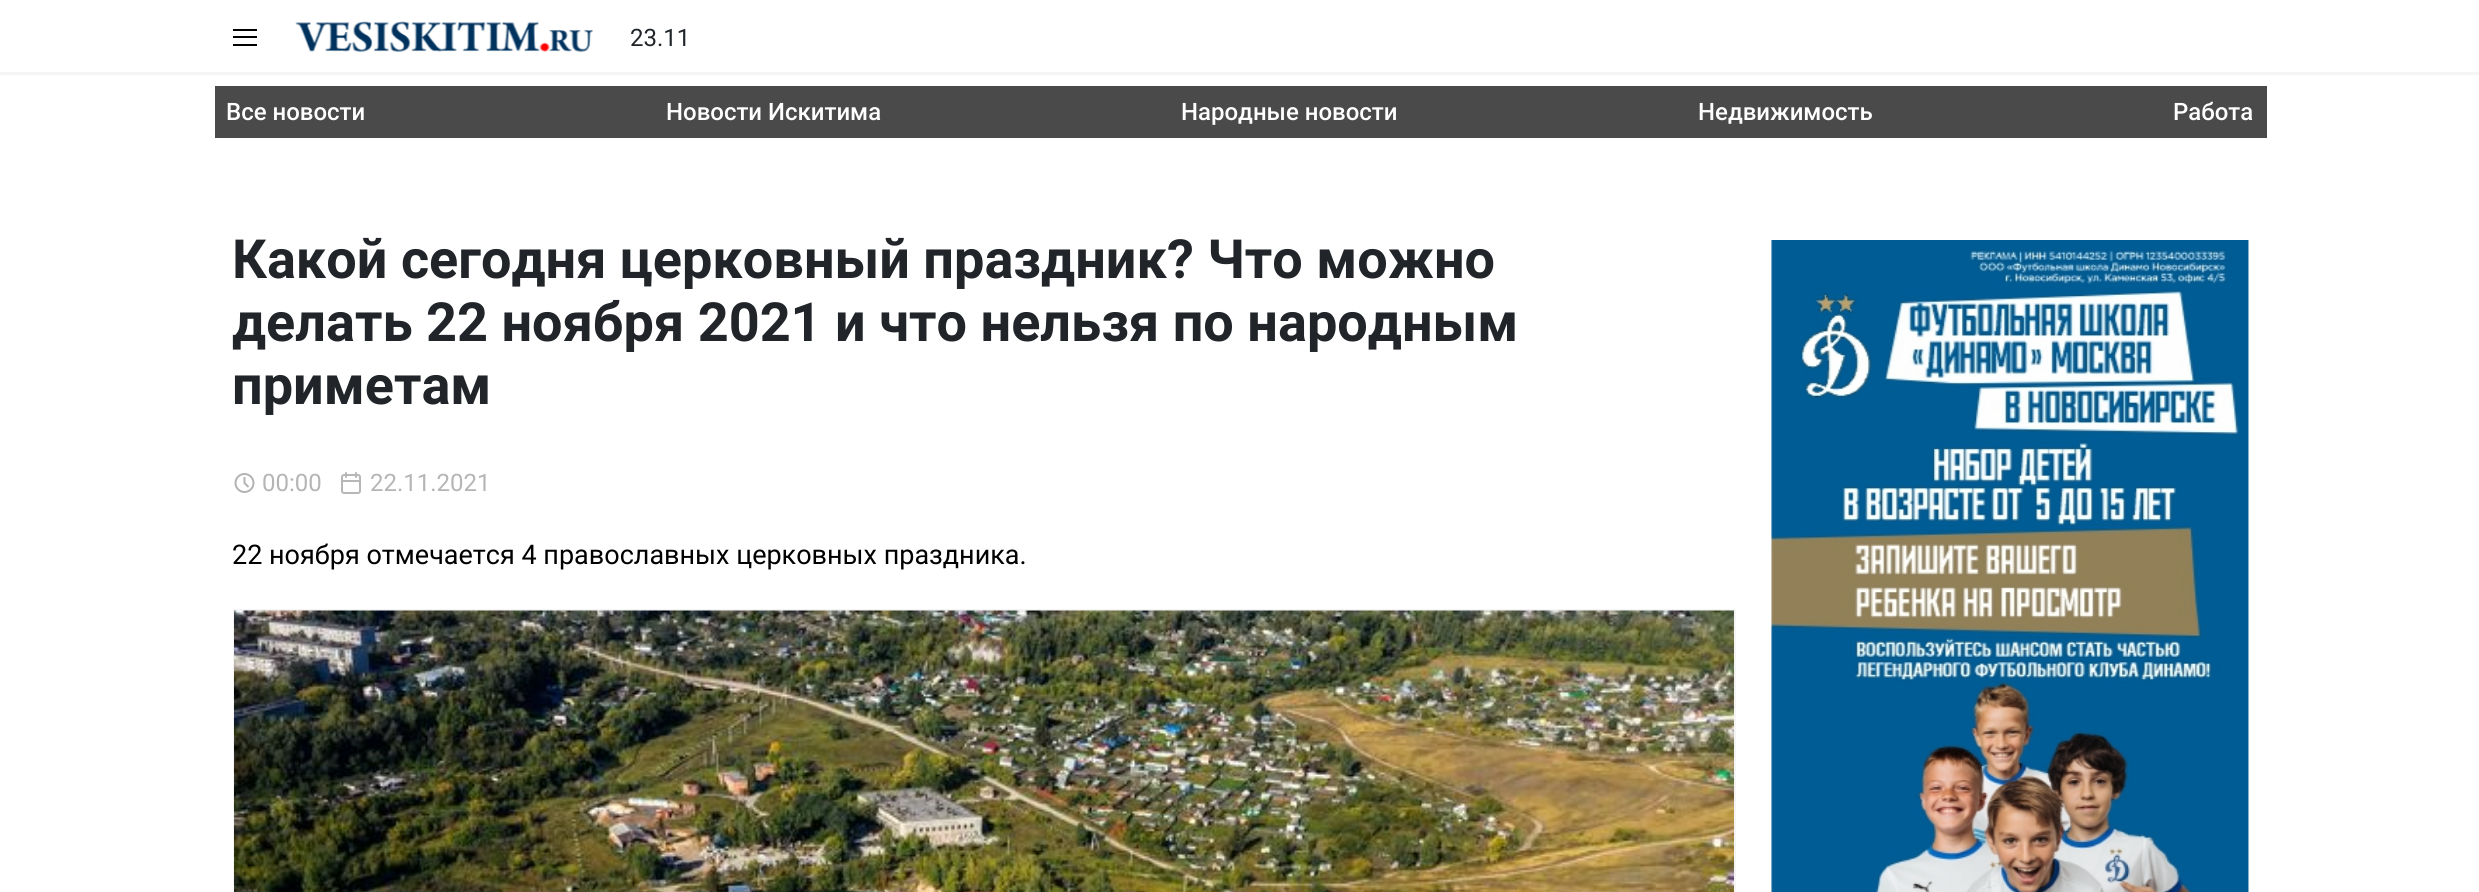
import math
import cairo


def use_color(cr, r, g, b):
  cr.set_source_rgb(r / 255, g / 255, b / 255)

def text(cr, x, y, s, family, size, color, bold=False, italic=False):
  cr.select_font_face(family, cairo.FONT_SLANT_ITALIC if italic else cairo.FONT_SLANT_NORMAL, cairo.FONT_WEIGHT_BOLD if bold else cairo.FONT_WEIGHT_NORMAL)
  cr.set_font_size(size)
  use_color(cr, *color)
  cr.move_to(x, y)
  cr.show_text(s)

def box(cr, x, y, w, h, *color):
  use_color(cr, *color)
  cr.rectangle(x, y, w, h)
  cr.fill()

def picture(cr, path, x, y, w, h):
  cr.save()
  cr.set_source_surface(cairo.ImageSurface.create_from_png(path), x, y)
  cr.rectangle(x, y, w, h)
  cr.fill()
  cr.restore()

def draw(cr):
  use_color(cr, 255, 255, 255)
  cr.paint()
  box(cr, 0, 72, 2479, 3, 245, 245, 245)
  box(cr, 233, 29, 24, 2, 0, 0, 0)
  box(cr, 233, 36, 24, 2, 0, 0, 0)
  box(cr, 233, 44, 24, 2, 0, 0, 0)
  picture(cr, "img_01.png", 295, 21, 298, 32)
  box(cr, 215, 86, 2052, 52, 74, 74, 74)
  picture(cr, "img_02.png", 234, 473, 21, 20)
  picture(cr, "img_03.png", 341, 472, 20, 22)
  cr.rectangle(234, 610, 1501, 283)
  use_color(cr, 245, 245, 245)
  cr.stroke()
  picture(cr, "img_04.png", 234, 610, 1500, 282)
  picture(cr, "img_05.png", 1771, 240, 478, 652)
  text(cr, 630, 46, "23.11", "Roboto", 24, (33, 37, 41))
  text(cr, 226, 120, "Все новости", "Roboto Medium", 24, (255, 255, 255))
  text(cr, 666, 120, "Новости Искитима", "Roboto Medium", 24, (255, 255, 255))
  text(cr, 1181, 120, "Народные новости", "Roboto Medium", 24, (255, 255, 255))
  text(cr, 1698, 120, "Недвижимость", "Roboto Medium", 24, (255, 255, 255))
  text(cr, 2173, 120, "Работа", "Roboto Medium", 24, (255, 255, 255))
  text(cr, 232, 278, "Какой сегодня церковный праздник? Что можно", "Roboto", 54, (33, 37, 41), bold=True)
  text(cr, 232, 341, "делать 22 ноября 2021 и что нельзя по народным", "Roboto", 54, (33, 37, 41), bold=True)
  text(cr, 232, 404, "приметам", "Roboto", 54, (33, 37, 41), bold=True)
  text(cr, 262, 491, "00:00", "Roboto", 24, (181, 181, 181))
  text(cr, 370, 491, "22.11.2021", "Roboto", 24, (181, 181, 181))
  text(cr, 232, 564, "22 ноября отмечается 4 православных церковных праздника.", "Roboto", 27, (0, 0, 0))


surface = cairo.ImageSurface(cairo.FORMAT_RGB24, 2479, 892)
cr = cairo.Context(surface)
options = cairo.FontOptions()
options.set_hint_metrics(cairo.HINT_METRICS_OFF)
options.set_hint_style(cairo.HINT_STYLE_NONE)
cr.set_font_options(options)
cr.set_miter_limit(4)
draw(cr)
surface.write_to_png("out.png")
